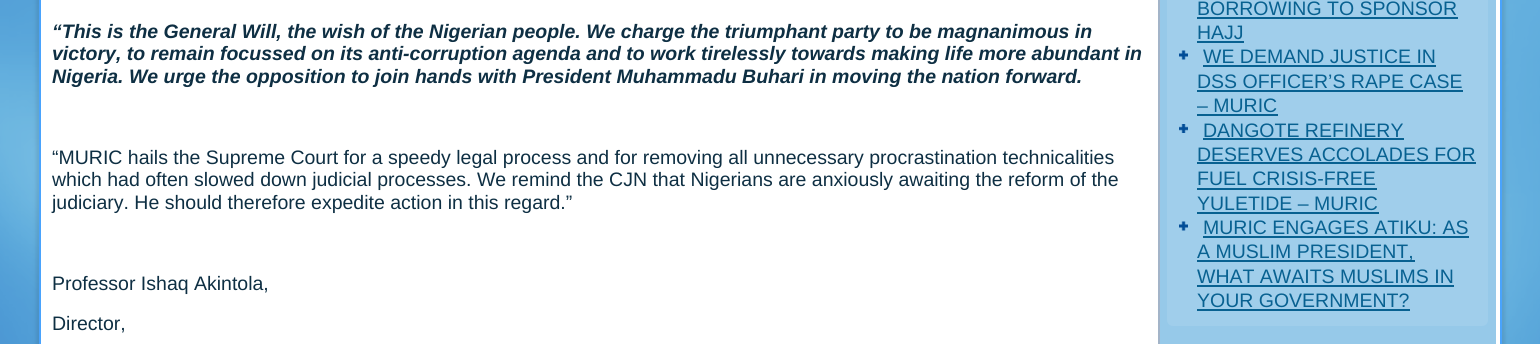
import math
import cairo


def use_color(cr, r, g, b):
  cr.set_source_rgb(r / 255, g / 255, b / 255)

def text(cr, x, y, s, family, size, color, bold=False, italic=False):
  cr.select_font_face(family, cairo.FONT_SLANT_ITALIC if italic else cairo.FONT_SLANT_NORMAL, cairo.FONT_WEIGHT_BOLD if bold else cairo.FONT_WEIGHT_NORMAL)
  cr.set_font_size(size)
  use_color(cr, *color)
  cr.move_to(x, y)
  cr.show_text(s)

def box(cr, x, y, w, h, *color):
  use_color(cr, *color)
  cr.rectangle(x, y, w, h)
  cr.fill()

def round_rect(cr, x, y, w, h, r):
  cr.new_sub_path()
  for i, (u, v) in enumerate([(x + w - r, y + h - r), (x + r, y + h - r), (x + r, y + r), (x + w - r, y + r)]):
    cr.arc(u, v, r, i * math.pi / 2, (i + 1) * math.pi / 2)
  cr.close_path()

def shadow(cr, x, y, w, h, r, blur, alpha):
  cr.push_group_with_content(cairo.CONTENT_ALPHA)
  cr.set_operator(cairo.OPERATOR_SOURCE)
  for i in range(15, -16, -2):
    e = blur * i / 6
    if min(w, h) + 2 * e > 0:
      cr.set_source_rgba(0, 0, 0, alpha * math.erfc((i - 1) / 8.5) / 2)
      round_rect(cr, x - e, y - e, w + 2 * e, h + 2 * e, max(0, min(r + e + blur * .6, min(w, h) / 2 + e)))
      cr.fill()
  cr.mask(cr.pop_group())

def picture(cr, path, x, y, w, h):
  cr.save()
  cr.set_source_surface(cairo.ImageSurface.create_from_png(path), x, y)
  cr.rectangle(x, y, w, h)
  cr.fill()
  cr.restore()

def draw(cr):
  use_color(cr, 99, 175, 222)
  cr.paint()
  picture(cr, "img_01.png", 0, 0, 1540, 344)
  use_color(cr, 0, 0, 0)
  shadow(cr, 36, -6, 1469, 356, 0, 2, 0.1)
  box(cr, 41, 0, 1459, 344, 255, 255, 255)
  box(cr, 1500, 0, 2, 344, 73, 163, 253)
  box(cr, 39, 0, 2, 344, 73, 163, 253)
  box(cr, 1160, 0, 336, 344, 150, 201, 233)
  box(cr, 1158, 0, 2, 344, 163, 180, 200)
  use_color(cr, 160, 206, 235)
  round_rect(cr, 1167, -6, 321, 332, 6)
  cr.fill()
  box(cr, 1197, 17, 261, 2, 8, 97, 145)
  box(cr, 1197, 41, 47, 2, 8, 97, 145)
  picture(cr, "img_02.png", 1179, 50, 9, 10)
  box(cr, 1203, 65, 233, 2, 8, 97, 145)
  box(cr, 1197, 90, 266, 2, 8, 97, 145)
  box(cr, 1197, 114, 81, 2, 8, 97, 145)
  picture(cr, "img_03.png", 1179, 124, 9, 9)
  box(cr, 1203, 138, 201, 2, 8, 97, 145)
  box(cr, 1197, 162, 279, 2, 8, 97, 145)
  box(cr, 1197, 188, 180, 2, 8, 97, 145)
  box(cr, 1197, 212, 182, 2, 8, 97, 145)
  picture(cr, "img_02.png", 1179, 221, 9, 10)
  box(cr, 1203, 236, 266, 2, 8, 97, 145)
  box(cr, 1197, 260, 218, 2, 8, 97, 145)
  box(cr, 1197, 285, 257, 2, 8, 97, 145)
  box(cr, 1197, 309, 213, 2, 8, 97, 145)
  text(cr, 52, 38, "“This is the General Will, the wish of the Nigerian people. We charge the triumphant party to be magnanimous in", "Liberation Sans", 19.5, (14, 47, 67), bold=True, italic=True)
  text(cr, 52, 60, "victory, to remain focussed on its anti-corruption agenda and to work tirelessly towards making life more abundant in", "Liberation Sans", 19.5, (14, 47, 67), bold=True, italic=True)
  text(cr, 52, 83, "Nigeria. We urge the opposition to join hands with President Muhammadu Buhari in moving the nation forward.", "Liberation Sans", 19.5, (14, 47, 67), bold=True, italic=True)
  text(cr, 52, 164, "“MURIC hails the Supreme Court for a speedy legal process and for removing all unnecessary procrastination technicalities", "Liberation Sans", 19.5, (14, 47, 67))
  text(cr, 52, 186, "which had often slowed down judicial processes. We remind the CJN that Nigerians are anxiously awaiting the reform of the", "Liberation Sans", 19.5, (14, 47, 67))
  text(cr, 52, 209, "judiciary. He should therefore expedite action in this regard.”", "Liberation Sans", 19.5, (14, 47, 67))
  text(cr, 52, 290, "Professor Ishaq Akintola,", "Liberation Sans", 19.5, (14, 47, 67))
  text(cr, 52, 330, "Director,", "Liberation Sans", 19.5, (14, 47, 67))
  text(cr, 1197, 15, "BORROWING TO SPONSOR", "Liberation Sans", 19.5, (8, 97, 145))
  text(cr, 1197, 39, "HAJJ", "Liberation Sans", 19.5, (8, 97, 145))
  text(cr, 1203, 63, "WE DEMAND JUSTICE IN", "Liberation Sans", 19.5, (8, 97, 145))
  text(cr, 1197, 88, "DSS OFFICER’S RAPE CASE", "Liberation Sans", 19.5, (8, 97, 145))
  text(cr, 1197, 112, "– MURIC", "Liberation Sans", 19.5, (8, 97, 145))
  text(cr, 1203, 137, "DANGOTE REFINERY", "Liberation Sans", 19.5, (8, 97, 145))
  text(cr, 1197, 161, "DESERVES ACCOLADES FOR", "Liberation Sans", 19.5, (8, 97, 145))
  text(cr, 1197, 185, "FUEL CRISIS-FREE", "Liberation Sans", 19.5, (8, 97, 145))
  text(cr, 1197, 210, "YULETIDE – MURIC", "Liberation Sans", 19.5, (8, 97, 145))
  text(cr, 1203, 234, "MURIC ENGAGES ATIKU: AS", "Liberation Sans", 19.5, (8, 97, 145))
  text(cr, 1197, 258, "A MUSLIM PRESIDENT,", "Liberation Sans", 19.5, (8, 97, 145))
  text(cr, 1197, 283, "WHAT AWAITS MUSLIMS IN", "Liberation Sans", 19.5, (8, 97, 145))
  text(cr, 1197, 307, "YOUR GOVERNMENT?", "Liberation Sans", 19.5, (8, 97, 145))


surface = cairo.ImageSurface(cairo.FORMAT_RGB24, 1540, 344)
cr = cairo.Context(surface)
options = cairo.FontOptions()
options.set_hint_metrics(cairo.HINT_METRICS_OFF)
options.set_hint_style(cairo.HINT_STYLE_NONE)
cr.set_font_options(options)
cr.set_miter_limit(4)
draw(cr)
surface.write_to_png("out.png")
